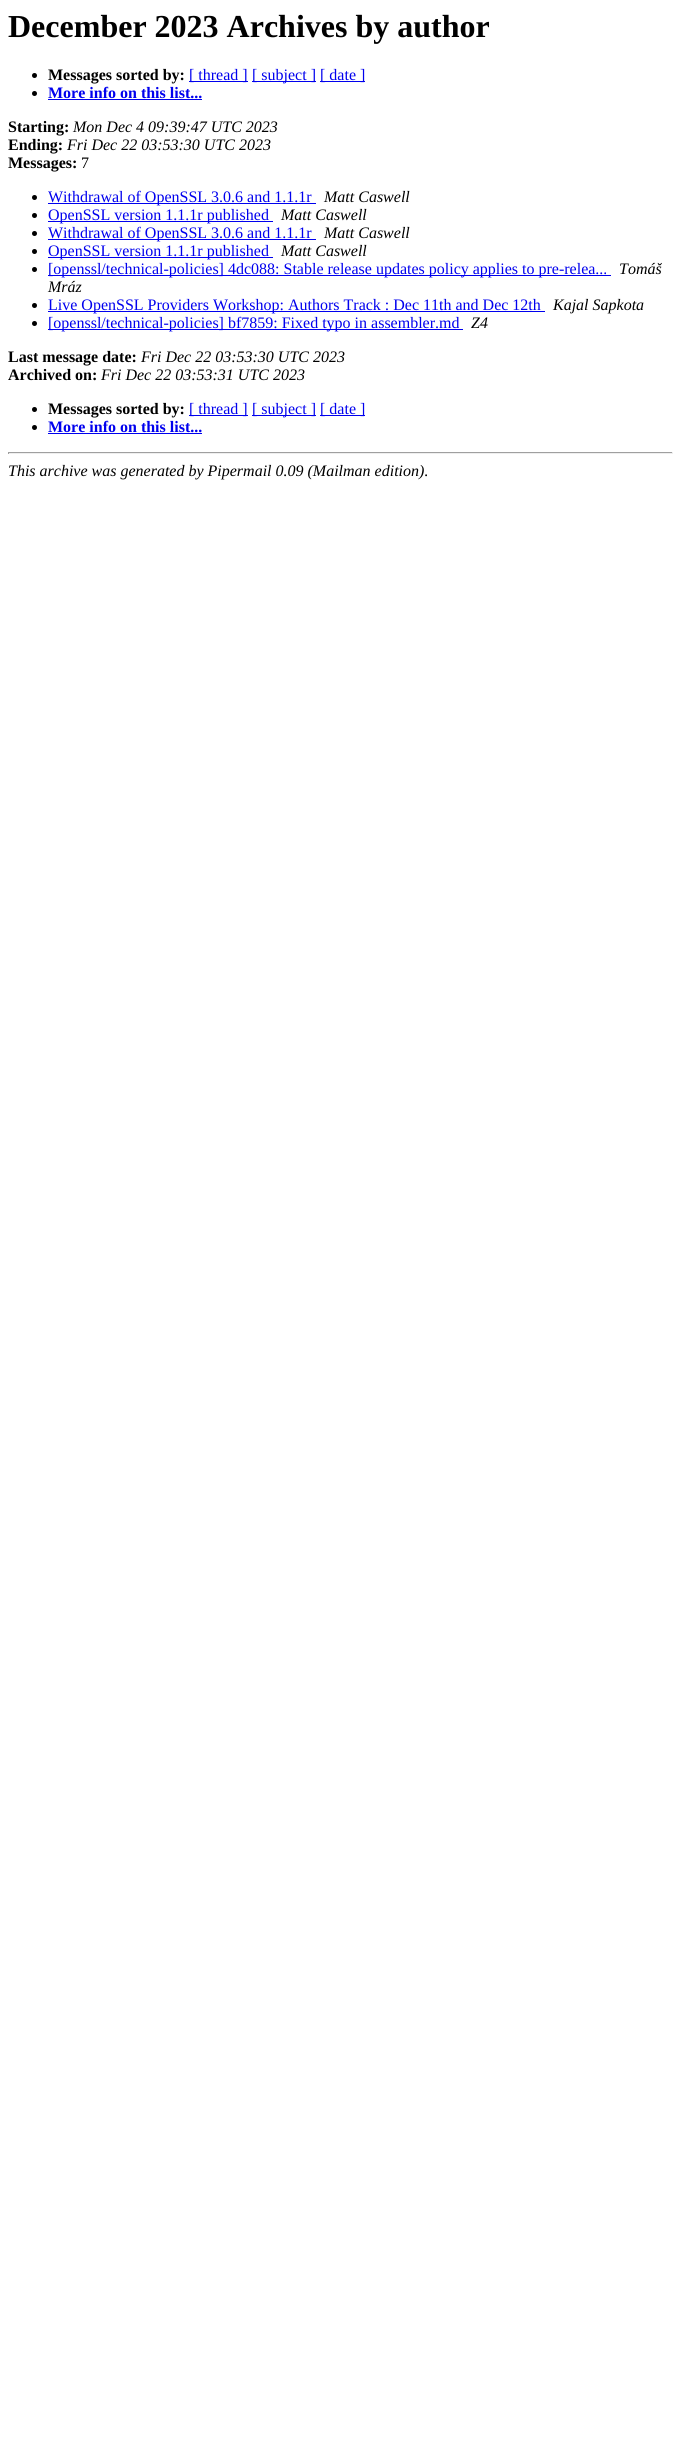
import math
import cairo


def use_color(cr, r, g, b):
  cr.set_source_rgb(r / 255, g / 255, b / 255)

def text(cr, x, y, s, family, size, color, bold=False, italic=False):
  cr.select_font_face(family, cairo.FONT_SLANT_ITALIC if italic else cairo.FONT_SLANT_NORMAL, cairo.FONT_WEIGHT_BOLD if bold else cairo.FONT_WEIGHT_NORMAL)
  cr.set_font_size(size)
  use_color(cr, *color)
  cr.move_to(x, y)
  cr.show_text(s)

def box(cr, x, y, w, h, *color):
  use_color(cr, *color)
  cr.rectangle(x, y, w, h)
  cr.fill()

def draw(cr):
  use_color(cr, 255, 255, 255)
  cr.paint()
  use_color(cr, 0, 0, 0)
  cr.arc(34.5, 75.5, 2.5, 0, 2 * math.pi)
  cr.fill()
  box(cr, 189, 81, 59, 1, 0, 0, 238)
  box(cr, 252, 81, 64, 1, 0, 0, 238)
  box(cr, 320, 81, 45, 1, 0, 0, 238)
  use_color(cr, 0, 0, 0)
  cr.arc(34.5, 93.5, 2.5, 0, 2 * math.pi)
  cr.fill()
  box(cr, 48, 99, 154, 1, 0, 0, 238)
  use_color(cr, 0, 0, 0)
  cr.arc(34.5, 197.5, 2.5, 0, 2 * math.pi)
  cr.fill()
  box(cr, 48, 203, 268, 1, 0, 0, 238)
  use_color(cr, 0, 0, 0)
  cr.arc(34.5, 215.5, 2.5, 0, 2 * math.pi)
  cr.fill()
  box(cr, 48, 221, 225, 1, 0, 0, 238)
  use_color(cr, 0, 0, 0)
  cr.arc(34.5, 233.5, 2.5, 0, 2 * math.pi)
  cr.fill()
  box(cr, 48, 239, 268, 1, 0, 0, 238)
  use_color(cr, 0, 0, 0)
  cr.arc(34.5, 251.5, 2.5, 0, 2 * math.pi)
  cr.fill()
  box(cr, 48, 257, 225, 1, 0, 0, 238)
  use_color(cr, 0, 0, 0)
  cr.arc(34.5, 269.5, 2.5, 0, 2 * math.pi)
  cr.fill()
  box(cr, 48, 275, 563, 1, 0, 0, 238)
  use_color(cr, 0, 0, 0)
  cr.arc(34.5, 305.5, 2.5, 0, 2 * math.pi)
  cr.fill()
  box(cr, 48, 311, 497, 1, 0, 0, 238)
  use_color(cr, 0, 0, 0)
  cr.arc(34.5, 323.5, 2.5, 0, 2 * math.pi)
  cr.fill()
  box(cr, 48, 329, 415, 1, 0, 0, 238)
  use_color(cr, 0, 0, 0)
  cr.arc(34.5, 409.5, 2.5, 0, 2 * math.pi)
  cr.fill()
  box(cr, 189, 415, 59, 1, 0, 0, 238)
  box(cr, 252, 415, 64, 1, 0, 0, 238)
  box(cr, 320, 415, 45, 1, 0, 0, 238)
  use_color(cr, 0, 0, 0)
  cr.arc(34.5, 427.5, 2.5, 0, 2 * math.pi)
  cr.fill()
  box(cr, 48, 433, 154, 1, 0, 0, 238)
  box(cr, 8, 452, 665, 1, 159, 159, 159)
  box(cr, 672, 452, 1, 2, 238, 238, 238)
  box(cr, 8, 453, 665, 1, 238, 238, 238)
  box(cr, 8, 452, 1, 2, 159, 159, 159)
  text(cr, 8, 37, "December 2023 Archives by author", "Liberation Serif", 32, (0, 0, 0), bold=True)
  text(cr, 48, 80, "Messages sorted by:", "Liberation Serif", 16, (0, 0, 0), bold=True)
  text(cr, 189, 80, "[ thread ]", "Liberation Serif", 16, (0, 0, 238))
  text(cr, 252, 80, "[ subject ]", "Liberation Serif", 16, (0, 0, 238))
  text(cr, 320, 80, "[ date ]", "Liberation Serif", 16, (0, 0, 238))
  text(cr, 48, 98, "More info on this list...", "Liberation Serif", 16, (0, 0, 238), bold=True)
  text(cr, 8, 132, "Starting:", "Liberation Serif", 16, (0, 0, 0), bold=True)
  text(cr, 73, 132, "Mon Dec 4 09:39:47 UTC 2023", "Liberation Serif", 16, (0, 0, 0), italic=True)
  text(cr, 8, 150, "Ending:", "Liberation Serif", 16, (0, 0, 0), bold=True)
  text(cr, 67, 150, "Fri Dec 22 03:53:30 UTC 2023", "Liberation Serif", 16, (0, 0, 0), italic=True)
  text(cr, 8, 168, "Messages:", "Liberation Serif", 16, (0, 0, 0), bold=True)
  text(cr, 81, 168, "7", "Liberation Serif", 16, (0, 0, 0))
  text(cr, 48, 202, "Withdrawal of OpenSSL 3.0.6 and 1.1.1r", "Liberation Serif", 16, (0, 0, 238))
  text(cr, 324, 202, "Matt Caswell", "Liberation Serif", 16, (0, 0, 0), italic=True)
  text(cr, 48, 220, "OpenSSL version 1.1.1r published", "Liberation Serif", 16, (0, 0, 238))
  text(cr, 281, 220, "Matt Caswell", "Liberation Serif", 16, (0, 0, 0), italic=True)
  text(cr, 48, 238, "Withdrawal of OpenSSL 3.0.6 and 1.1.1r", "Liberation Serif", 16, (0, 0, 238))
  text(cr, 324, 238, "Matt Caswell", "Liberation Serif", 16, (0, 0, 0), italic=True)
  text(cr, 48, 256, "OpenSSL version 1.1.1r published", "Liberation Serif", 16, (0, 0, 238))
  text(cr, 281, 256, "Matt Caswell", "Liberation Serif", 16, (0, 0, 0), italic=True)
  text(cr, 48, 274, "[openssl/technical-policies] 4dc088: Stable release updates policy applies to pre-relea...", "Liberation Serif", 16, (0, 0, 238))
  text(cr, 619, 274, "Tomáš", "Liberation Serif", 16, (0, 0, 0), italic=True)
  text(cr, 48, 292, "Mráz", "Liberation Serif", 16, (0, 0, 0), italic=True)
  text(cr, 48, 310, "Live OpenSSL Providers Workshop: Authors Track : Dec 11th and Dec 12th", "Liberation Serif", 16, (0, 0, 238))
  text(cr, 553, 310, "Kajal Sapkota", "Liberation Serif", 16, (0, 0, 0), italic=True)
  text(cr, 48, 328, "[openssl/technical-policies] bf7859: Fixed typo in assembler.md", "Liberation Serif", 16, (0, 0, 238))
  text(cr, 471, 328, "Z4", "Liberation Serif", 16, (0, 0, 0), italic=True)
  text(cr, 8, 362, "Last message date:", "Liberation Serif", 16, (0, 0, 0), bold=True)
  text(cr, 141, 362, "Fri Dec 22 03:53:30 UTC 2023", "Liberation Serif", 16, (0, 0, 0), italic=True)
  text(cr, 8, 380, "Archived on:", "Liberation Serif", 16, (0, 0, 0), bold=True)
  text(cr, 101, 380, "Fri Dec 22 03:53:31 UTC 2023", "Liberation Serif", 16, (0, 0, 0), italic=True)
  text(cr, 48, 414, "Messages sorted by:", "Liberation Serif", 16, (0, 0, 0), bold=True)
  text(cr, 189, 414, "[ thread ]", "Liberation Serif", 16, (0, 0, 238))
  text(cr, 252, 414, "[ subject ]", "Liberation Serif", 16, (0, 0, 238))
  text(cr, 320, 414, "[ date ]", "Liberation Serif", 16, (0, 0, 238))
  text(cr, 48, 432, "More info on this list...", "Liberation Serif", 16, (0, 0, 238), bold=True)
  text(cr, 8, 476, "This archive was generated by Pipermail 0.09 (Mailman edition).", "Liberation Serif", 16, (0, 0, 0), italic=True)


surface = cairo.ImageSurface(cairo.FORMAT_RGB24, 681, 2451)
cr = cairo.Context(surface)
options = cairo.FontOptions()
options.set_hint_metrics(cairo.HINT_METRICS_OFF)
options.set_hint_style(cairo.HINT_STYLE_NONE)
cr.set_font_options(options)
cr.set_miter_limit(4)
draw(cr)
surface.write_to_png("out.png")
